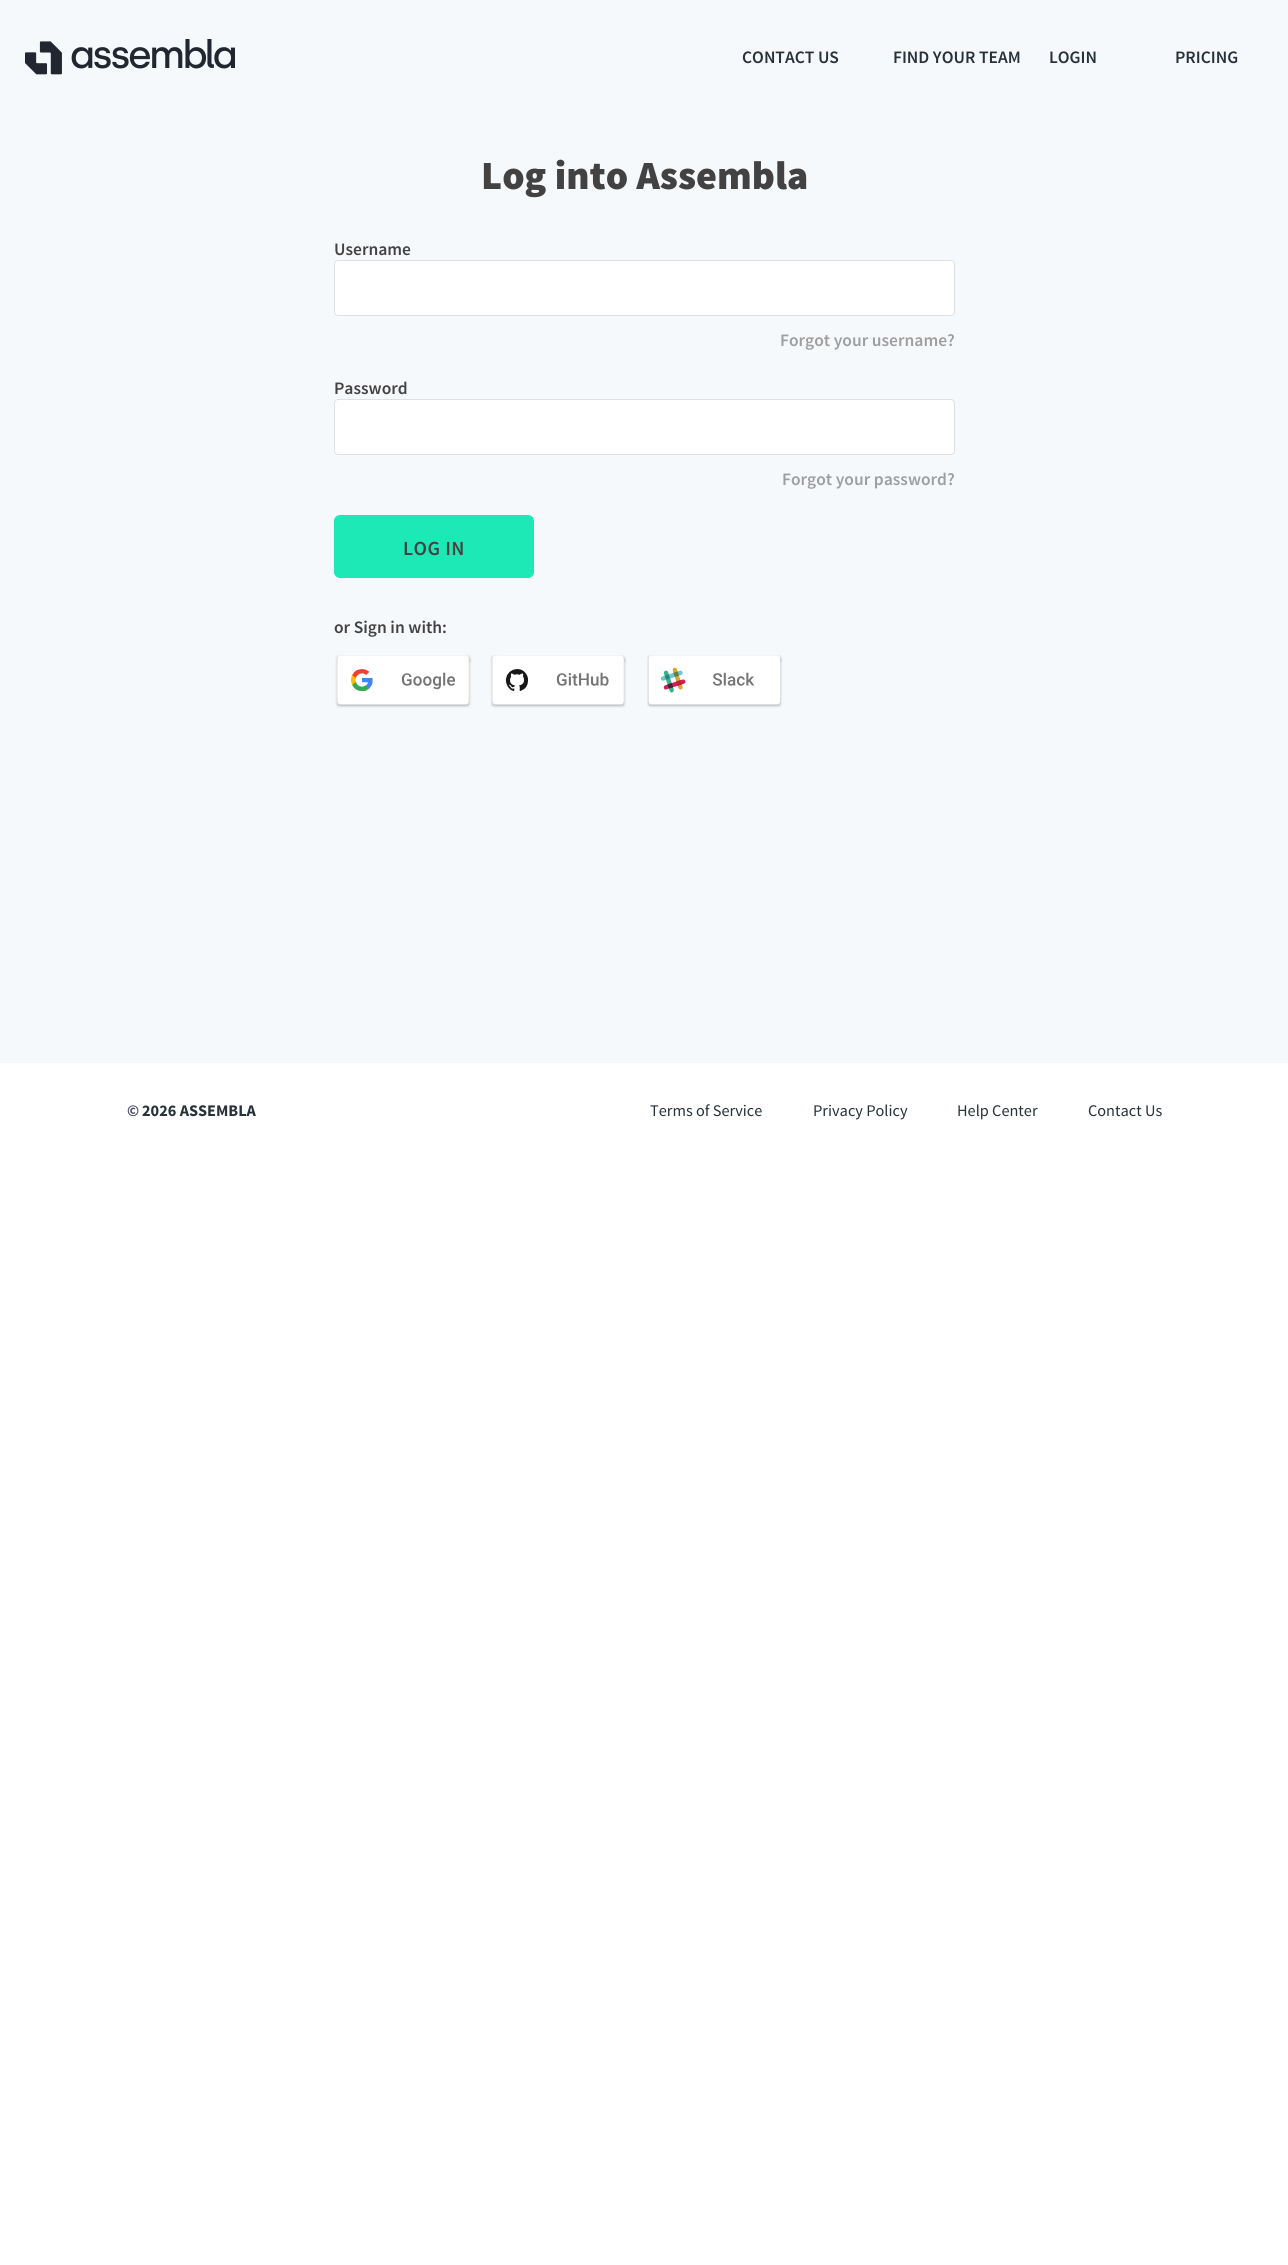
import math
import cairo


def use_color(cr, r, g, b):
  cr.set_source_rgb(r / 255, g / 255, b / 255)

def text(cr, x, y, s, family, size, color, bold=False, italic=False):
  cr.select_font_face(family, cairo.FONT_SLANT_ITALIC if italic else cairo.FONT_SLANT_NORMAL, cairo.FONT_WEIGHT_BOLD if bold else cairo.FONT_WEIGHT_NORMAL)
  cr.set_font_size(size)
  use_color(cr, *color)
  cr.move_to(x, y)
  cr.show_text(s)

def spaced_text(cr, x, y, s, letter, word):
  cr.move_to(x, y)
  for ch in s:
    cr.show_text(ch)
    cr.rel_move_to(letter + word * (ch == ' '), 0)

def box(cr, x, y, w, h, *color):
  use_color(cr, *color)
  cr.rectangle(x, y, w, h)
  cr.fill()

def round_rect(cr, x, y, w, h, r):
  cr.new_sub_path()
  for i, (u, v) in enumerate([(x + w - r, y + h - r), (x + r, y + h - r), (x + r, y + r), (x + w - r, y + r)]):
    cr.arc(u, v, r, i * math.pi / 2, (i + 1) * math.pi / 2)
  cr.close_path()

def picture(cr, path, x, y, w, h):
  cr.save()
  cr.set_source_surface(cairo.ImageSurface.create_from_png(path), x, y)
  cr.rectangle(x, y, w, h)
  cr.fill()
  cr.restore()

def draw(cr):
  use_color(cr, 255, 255, 255)
  cr.paint()
  box(cr, 0, 0, 1288, 1063, 246, 249, 252)
  picture(cr, "img_01.png", 25, 39, 210, 36)
  use_color(cr, 255, 255, 255)
  round_rect(cr, 334.5, 260.5, 620, 55, 3.5)
  cr.fill_preserve()
  use_color(cr, 224, 224, 224)
  cr.set_line_width(1)
  cr.stroke()
  use_color(cr, 255, 255, 255)
  round_rect(cr, 334.5, 399.5, 620, 55, 3.5)
  cr.fill_preserve()
  use_color(cr, 224, 224, 224)
  cr.stroke()
  use_color(cr, 29, 233, 182)
  round_rect(cr, 334, 515, 200, 63, 6)
  cr.fill()
  picture(cr, "img_02.png", 335, 655, 137, 53)
  picture(cr, "img_03.png", 490, 655, 137, 53)
  picture(cr, "img_04.png", 647, 655, 136, 53)
  text(cr, 742, 63, "CONTACT US", "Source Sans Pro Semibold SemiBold", 17.5, (38, 50, 56))
  text(cr, 893, 63, "FIND YOUR TEAM", "Source Sans Pro Semibold SemiBold", 17.5, (38, 50, 56))
  text(cr, 1049, 63, "LOGIN", "Source Sans Pro Semibold SemiBold", 17.5, (38, 50, 56))
  text(cr, 1175, 63, "PRICING", "Source Sans Pro Semibold SemiBold", 17.5, (38, 50, 56))
  text(cr, 481, 189, "Log into Assembla", "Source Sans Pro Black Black", 40, (66, 66, 66))
  text(cr, 334, 255, "Username", "Source Sans Pro Semibold SemiBold", 17.5, (66, 66, 66))
  text(cr, 780, 346, "Forgot your username?", "Source Sans Pro Semibold SemiBold", 17.5, (158, 158, 158))
  text(cr, 334, 394, "Password", "Source Sans Pro Semibold SemiBold", 17.5, (66, 66, 66))
  text(cr, 782, 485, "Forgot your password?", "Source Sans Pro Semibold SemiBold", 17.5, (158, 158, 158))
  cr.set_font_size(20)
  use_color(cr, 66, 66, 66)
  spaced_text(cr, 403, 555, "LOG IN", 0.5, 0)
  text(cr, 334, 633, "or Sign in with:", "Source Sans Pro Semibold SemiBold", 17.5, (66, 66, 66))
  text(cr, 127, 1116, "©", "Source Sans Pro", 16.25, (80, 80, 112), bold=True)
  text(cr, 142, 1116, "2026 ASSEMBLA", "Source Sans Pro", 16.25, (38, 50, 56), bold=True)
  text(cr, 650, 1116, "Terms of Service", "Source Sans Pro", 16.25, (38, 50, 56))
  text(cr, 813, 1116, "Privacy Policy", "Source Sans Pro", 16.25, (38, 50, 56))
  text(cr, 957, 1116, "Help Center", "Source Sans Pro", 16.25, (38, 50, 56))
  text(cr, 1088, 1116, "Contact Us", "Source Sans Pro", 16.25, (38, 50, 56))


surface = cairo.ImageSurface(cairo.FORMAT_RGB24, 1288, 2265)
cr = cairo.Context(surface)
options = cairo.FontOptions()
options.set_hint_metrics(cairo.HINT_METRICS_OFF)
options.set_hint_style(cairo.HINT_STYLE_NONE)
cr.set_font_options(options)
cr.set_miter_limit(4)
draw(cr)
surface.write_to_png("out.png")
